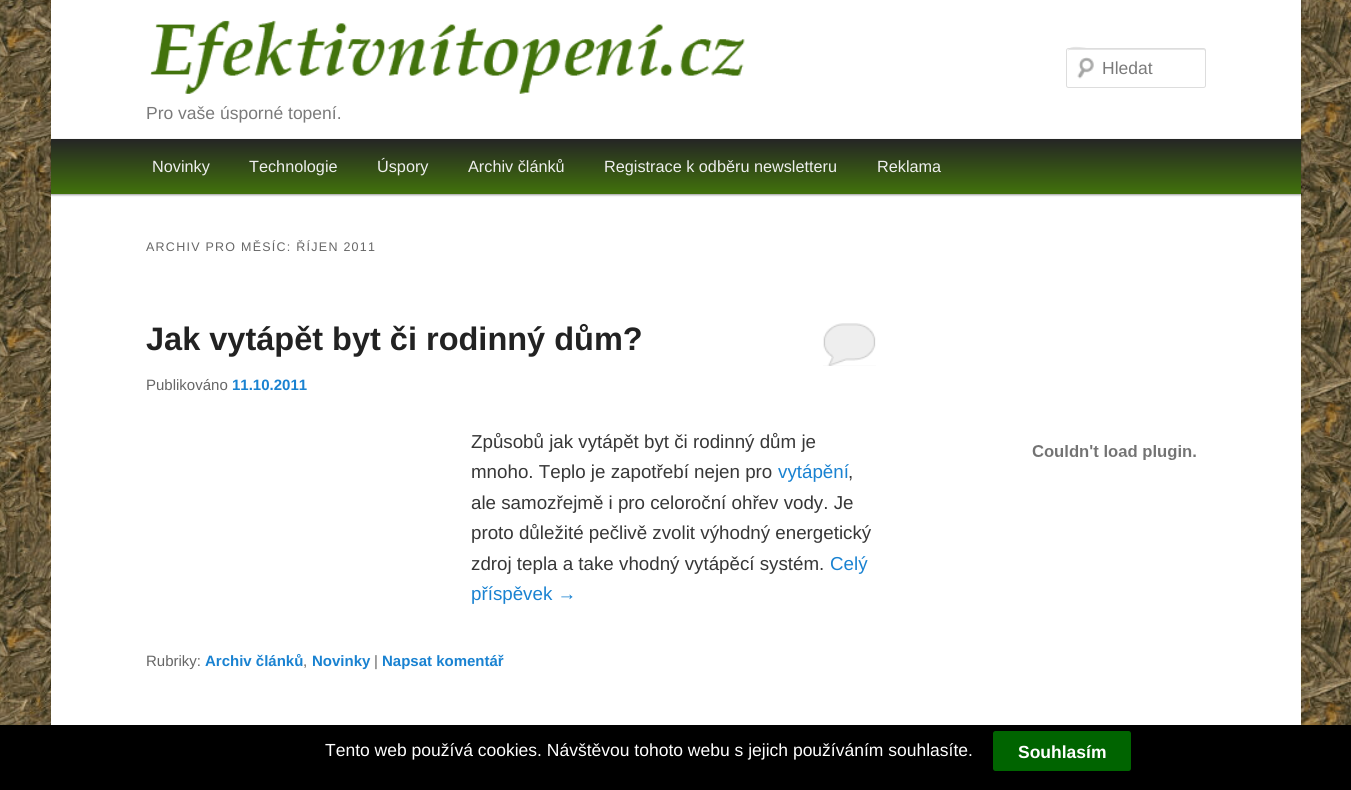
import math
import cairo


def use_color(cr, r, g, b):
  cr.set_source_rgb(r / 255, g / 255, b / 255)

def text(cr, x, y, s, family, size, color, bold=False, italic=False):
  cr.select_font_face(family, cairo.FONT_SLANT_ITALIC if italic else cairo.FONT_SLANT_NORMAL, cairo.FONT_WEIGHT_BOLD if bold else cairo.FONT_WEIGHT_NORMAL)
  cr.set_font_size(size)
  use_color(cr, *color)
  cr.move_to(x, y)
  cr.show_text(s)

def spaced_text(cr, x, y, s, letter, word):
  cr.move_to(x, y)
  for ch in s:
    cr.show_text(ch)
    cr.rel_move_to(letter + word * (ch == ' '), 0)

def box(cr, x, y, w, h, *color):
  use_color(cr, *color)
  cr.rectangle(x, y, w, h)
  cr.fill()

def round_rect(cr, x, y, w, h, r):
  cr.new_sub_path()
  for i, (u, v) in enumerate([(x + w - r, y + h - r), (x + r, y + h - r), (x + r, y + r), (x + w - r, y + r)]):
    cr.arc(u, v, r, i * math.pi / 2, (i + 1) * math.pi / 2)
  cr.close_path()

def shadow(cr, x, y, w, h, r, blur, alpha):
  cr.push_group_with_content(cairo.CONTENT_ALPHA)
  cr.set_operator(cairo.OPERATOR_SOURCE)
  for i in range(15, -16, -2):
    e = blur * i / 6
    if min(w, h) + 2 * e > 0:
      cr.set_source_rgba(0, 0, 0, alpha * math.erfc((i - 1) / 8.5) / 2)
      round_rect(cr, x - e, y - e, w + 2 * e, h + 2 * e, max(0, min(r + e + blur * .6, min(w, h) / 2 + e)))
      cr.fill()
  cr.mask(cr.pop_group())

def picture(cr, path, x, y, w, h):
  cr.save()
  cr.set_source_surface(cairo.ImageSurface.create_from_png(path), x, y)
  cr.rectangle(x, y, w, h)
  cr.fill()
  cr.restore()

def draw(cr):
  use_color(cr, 255, 255, 255)
  cr.paint()
  picture(cr, "img_01.png", 0, 0, 1351, 725)
  box(cr, 51, 0, 1250, 725, 255, 255, 255)
  picture(cr, "img_02.png", 1077, 57, 17, 22)
  use_color(cr, 230, 230, 230)
  cr.new_path()
  cr.move_to(1069, 50)
  cr.line_to(1204, 50)
  cr.line_to(1205, 51)
  cr.line_to(1205, 49)
  cr.line_to(1092, 49)
  cr.curve_to(1091, 49, 1068, 43, 1068, 51)
  cr.close_path()
  cr.fill()
  round_rect(cr, 1066.5, 48.5, 139, 39, 2)
  use_color(cr, 221, 221, 221)
  cr.set_line_width(1)
  cr.stroke()
  picture(cr, "img_03.png", 150, 20, 595, 74)
  use_color(cr, 0, 0, 0)
  shadow(cr, 51, 140, 1250, 55, 0, 1, 0.4)
  gradient = cairo.LinearGradient(676, 139, 676, 194)
  gradient.add_color_stop_rgba(0, 0.145, 0.145, 0.145, 1)
  gradient.add_color_stop_rgba(1, 0.255, 0.447, 0.043, 1)
  cr.set_source(gradient)
  cr.rectangle(51, 139, 1250, 55)
  cr.fill()
  box(cr, 823, 323, 53, 43, 238, 238, 238)
  picture(cr, "img_04.png", 823, 321, 53, 45)
  picture(cr, "img_05.png", 1032, 445, 164, 15)
  box(cr, 0, 725, 1351, 65, 0, 0, 0)
  use_color(cr, 0, 100, 0)
  round_rect(cr, 993, 731, 138, 40, 2.5)
  cr.fill()
  text(cr, 1102, 74, "Hledat", "Liberation Sans", 17.5, (122, 122, 122))
  text(cr, 146, 119, "Pro vaše úsporné topení.", "Liberation Sans", 17.5, (122, 122, 122))
  text(cr, 152, 172, "Novinky", "Liberation Sans", 16.25, (238, 238, 238))
  text(cr, 249, 172, "Technologie", "Liberation Sans", 16.25, (238, 238, 238))
  text(cr, 377, 172, "Úspory", "Liberation Sans", 16.25, (238, 238, 238))
  text(cr, 468, 172, "Archiv článků", "Liberation Sans", 16.25, (238, 238, 238))
  text(cr, 604, 172, "Registrace k odběru newsletteru", "Liberation Sans", 16.25, (238, 238, 238))
  text(cr, 877, 172, "Reklama", "Liberation Sans", 16.25, (238, 238, 238))
  cr.set_font_size(12.5)
  use_color(cr, 102, 102, 102)
  spaced_text(cr, 146, 251, "ARCHIV PRO MĚSÍC: ŘÍJEN 2011", 1.25, 0)
  text(cr, 146, 350, "Jak vytápět byt či rodinný dům?", "Liberation Sans", 32.5, (34, 34, 34), bold=True)
  text(cr, 146, 390, "Publikováno", "Liberation Sans", 15, (102, 102, 102))
  text(cr, 232, 390, "11.10.2011", "Liberation Sans", 15, (25, 130, 209), bold=True)
  text(cr, 471, 448, "Způsobů jak vytápět byt či rodinný dům je", "Liberation Sans", 18.75, (55, 55, 55))
  text(cr, 471, 478, "mnoho. Teplo je zapotřebí nejen pro", "Liberation Sans", 18.75, (55, 55, 55))
  text(cr, 778, 478, "vytápění", "Liberation Sans", 18.75, (25, 130, 209))
  text(cr, 848, 478, ",", "Liberation Sans", 18.75, (55, 55, 55))
  text(cr, 471, 509, "ale samozřejmě i pro celoroční ohřev vody. Je", "Liberation Sans", 18.75, (55, 55, 55))
  text(cr, 471, 539, "proto důležité pečlivě zvolit výhodný energetický", "Liberation Sans", 18.75, (55, 55, 55))
  text(cr, 471, 570, "zdroj tepla a take vhodný vytápěcí systém.", "Liberation Sans", 18.75, (55, 55, 55))
  text(cr, 830, 570, "Celý", "Liberation Sans", 18.75, (25, 130, 209))
  text(cr, 471, 600, "příspěvek →", "Liberation Sans", 18.75, (25, 130, 209))
  text(cr, 146, 666, "Rubriky:", "Liberation Sans", 15, (102, 102, 102))
  text(cr, 205, 666, "Archiv článků", "Liberation Sans", 15, (25, 130, 209), bold=True)
  text(cr, 303, 666, ",", "Liberation Sans", 15, (102, 102, 102))
  text(cr, 312, 666, "Novinky", "Liberation Sans", 15, (25, 130, 209), bold=True)
  text(cr, 374, 666, "|", "Liberation Sans", 15, (102, 102, 102))
  text(cr, 382, 666, "Napsat komentář", "Liberation Sans", 15, (25, 130, 209), bold=True)
  text(cr, 325, 756, "Tento web používá cookies. Návštěvou tohoto webu s jejich používáním souhlasíte.", "Liberation Sans", 17.5, (255, 255, 255))
  text(cr, 1018, 758, "Souhlasím", "Liberation Sans", 17.5, (255, 255, 255), bold=True)


surface = cairo.ImageSurface(cairo.FORMAT_RGB24, 1351, 790)
cr = cairo.Context(surface)
options = cairo.FontOptions()
options.set_hint_metrics(cairo.HINT_METRICS_OFF)
options.set_hint_style(cairo.HINT_STYLE_NONE)
cr.set_font_options(options)
cr.set_miter_limit(4)
draw(cr)
surface.write_to_png("out.png")
